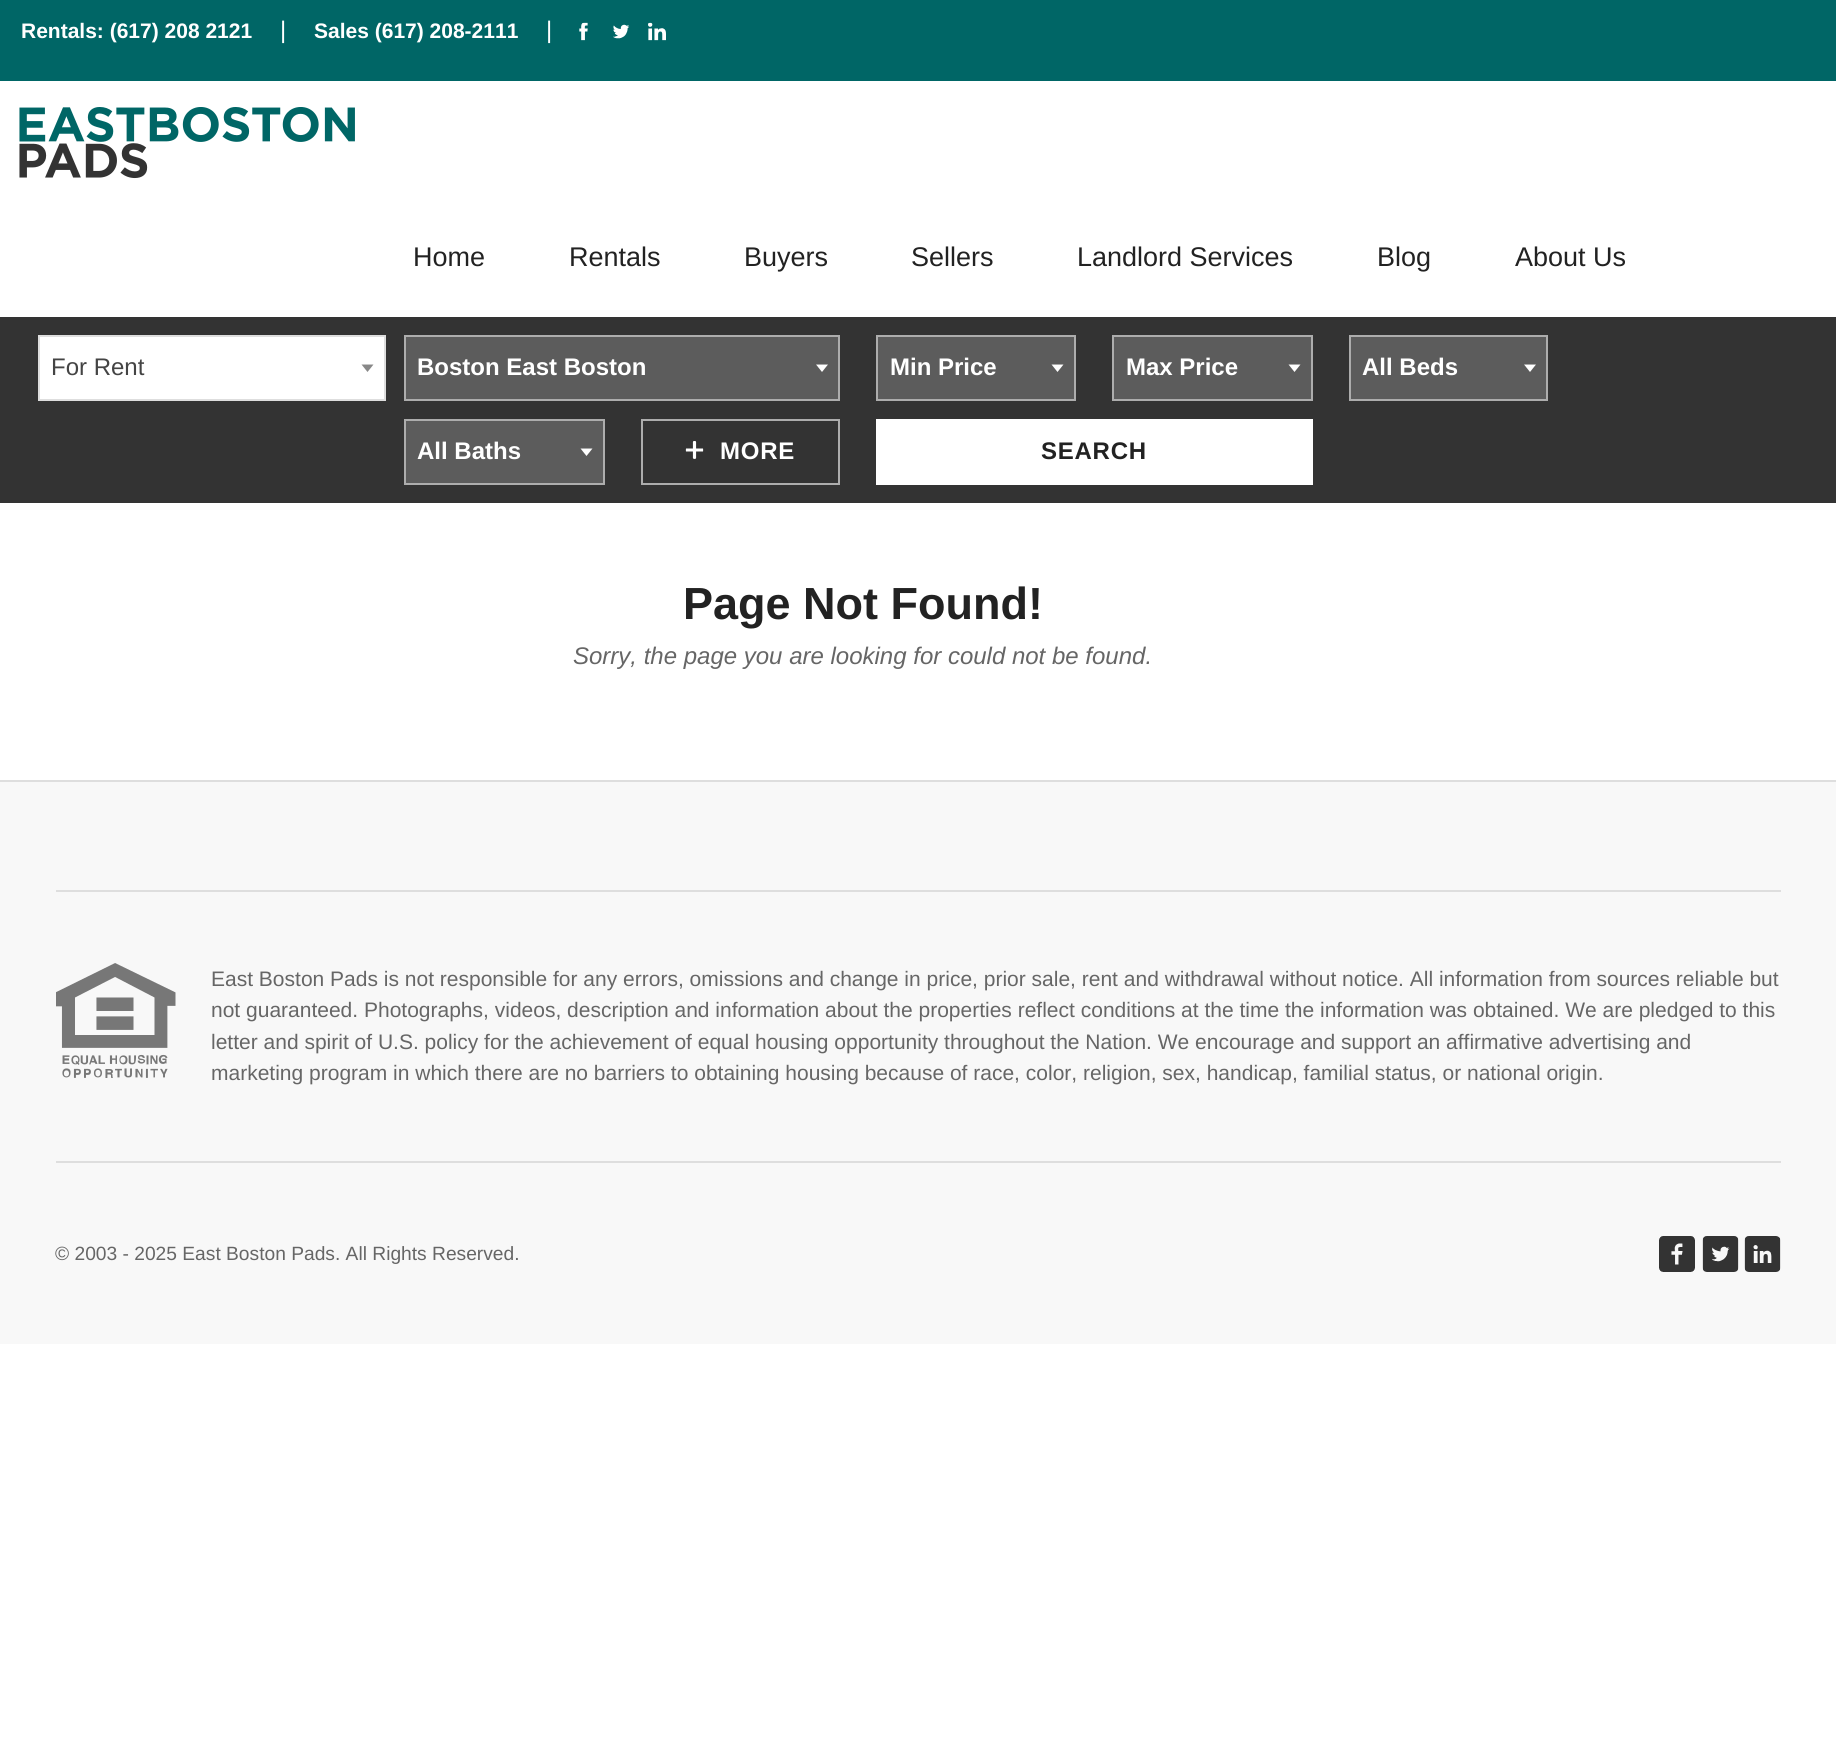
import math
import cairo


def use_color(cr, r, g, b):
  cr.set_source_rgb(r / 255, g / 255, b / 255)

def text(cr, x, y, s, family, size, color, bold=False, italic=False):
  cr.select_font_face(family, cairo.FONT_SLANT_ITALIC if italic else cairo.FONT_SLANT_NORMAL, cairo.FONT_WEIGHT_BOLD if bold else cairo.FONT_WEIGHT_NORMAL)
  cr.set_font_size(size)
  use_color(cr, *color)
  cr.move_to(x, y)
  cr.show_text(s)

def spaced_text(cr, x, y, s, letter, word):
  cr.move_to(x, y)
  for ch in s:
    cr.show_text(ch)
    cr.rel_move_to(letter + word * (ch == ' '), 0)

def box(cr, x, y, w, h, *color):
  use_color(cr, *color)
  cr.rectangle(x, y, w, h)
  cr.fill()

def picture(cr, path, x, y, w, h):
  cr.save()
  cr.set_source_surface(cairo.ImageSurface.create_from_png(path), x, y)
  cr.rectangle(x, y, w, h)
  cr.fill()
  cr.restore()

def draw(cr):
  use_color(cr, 255, 255, 255)
  cr.paint()
  box(cr, 0, 0, 1836, 81, 0, 102, 102)
  picture(cr, "img_01.png", 579, 22, 9, 19)
  picture(cr, "img_02.png", 613, 24, 17, 15)
  picture(cr, "img_03.png", 648, 22, 18, 19)
  picture(cr, "img_04.png", 19, 107, 336, 72)
  box(cr, 0, 317, 1836, 186, 51, 51, 51)
  use_color(cr, 255, 255, 255)
  cr.rectangle(39, 336, 346, 64)
  cr.fill_preserve()
  use_color(cr, 222, 222, 222)
  cr.stroke()
  use_color(cr, 136, 136, 136)
  cr.new_path()
  cr.move_to(361.5, 364.5)
  cr.line_to(373.5, 364.5)
  cr.line_to(367.5, 372)
  cr.close_path()
  cr.fill()
  use_color(cr, 92, 92, 92)
  cr.rectangle(405, 336, 434, 64)
  cr.fill_preserve()
  use_color(cr, 173, 173, 173)
  cr.stroke()
  use_color(cr, 255, 255, 255)
  cr.new_path()
  cr.move_to(816, 364.5)
  cr.line_to(828, 364.5)
  cr.line_to(822, 372)
  cr.close_path()
  cr.fill()
  use_color(cr, 92, 92, 92)
  cr.rectangle(877, 336, 198, 64)
  cr.fill_preserve()
  use_color(cr, 173, 173, 173)
  cr.stroke()
  use_color(cr, 255, 255, 255)
  cr.new_path()
  cr.move_to(1051.5, 364.5)
  cr.line_to(1063.5, 364.5)
  cr.line_to(1057.5, 372)
  cr.close_path()
  cr.fill()
  use_color(cr, 92, 92, 92)
  cr.rectangle(1113, 336, 199, 64)
  cr.fill_preserve()
  use_color(cr, 173, 173, 173)
  cr.stroke()
  use_color(cr, 255, 255, 255)
  cr.new_path()
  cr.move_to(1288.5, 364.5)
  cr.line_to(1300.5, 364.5)
  cr.line_to(1294.5, 372)
  cr.close_path()
  cr.fill()
  use_color(cr, 92, 92, 92)
  cr.rectangle(1350, 336, 197, 64)
  cr.fill_preserve()
  use_color(cr, 173, 173, 173)
  cr.stroke()
  use_color(cr, 255, 255, 255)
  cr.new_path()
  cr.move_to(1524, 364.5)
  cr.line_to(1536, 364.5)
  cr.line_to(1530, 372)
  cr.close_path()
  cr.fill()
  use_color(cr, 92, 92, 92)
  cr.rectangle(405, 420, 199, 64)
  cr.fill_preserve()
  use_color(cr, 173, 173, 173)
  cr.stroke()
  use_color(cr, 255, 255, 255)
  cr.new_path()
  cr.move_to(580.5, 448.5)
  cr.line_to(592.5, 448.5)
  cr.line_to(586.5, 456)
  cr.close_path()
  cr.fill()
  cr.rectangle(642, 420, 197, 64)
  use_color(cr, 173, 173, 173)
  cr.stroke()
  picture(cr, "img_05.png", 685, 441, 19, 18)
  box(cr, 876, 419, 437, 66, 255, 255, 255)
  box(cr, 0, 782, 1836, 562, 248, 248, 248)
  box(cr, 0, 780, 1836, 2, 222, 222, 222)
  box(cr, 56, 890, 1725, 2, 222, 222, 222)
  picture(cr, "img_06.png", 56, 963, 120, 115)
  box(cr, 56, 1161, 1725, 2, 222, 222, 222)
  picture(cr, "img_07.png", 1659, 1236, 36, 36)
  picture(cr, "img_08.png", 1702, 1236, 37, 36)
  picture(cr, "img_09.png", 1744, 1236, 37, 36)
  text(cr, 21, 38, "Rentals: (617) 208 2121", "Liberation Sans", 21, (255, 255, 255), bold=True)
  text(cr, 280, 38, "|", "Liberation Sans", 24, (255, 255, 255))
  text(cr, 314, 38, "Sales (617) 208-2111", "Liberation Sans", 21, (255, 255, 255), bold=True)
  text(cr, 546, 38, "|", "Liberation Sans", 24, (255, 255, 255))
  text(cr, 413, 266, "Home", "Liberation Sans", 27, (34, 34, 34))
  text(cr, 569, 266, "Rentals", "Liberation Sans", 27, (34, 34, 34))
  text(cr, 744, 266, "Buyers", "Liberation Sans", 27, (34, 34, 34))
  text(cr, 911, 266, "Sellers", "Liberation Sans", 27, (34, 34, 34))
  text(cr, 1077, 266, "Landlord Services", "Liberation Sans", 27, (34, 34, 34))
  text(cr, 1377, 266, "Blog", "Liberation Sans", 27, (34, 34, 34))
  text(cr, 1515, 266, "About Us", "Liberation Sans", 27, (34, 34, 34))
  text(cr, 51, 375, "For Rent", "Liberation Sans", 24, (68, 68, 68))
  text(cr, 417, 375, "Boston East Boston", "Liberation Sans", 24, (255, 255, 255), bold=True)
  text(cr, 890, 375, "Min Price", "Liberation Sans", 24, (255, 255, 255), bold=True)
  text(cr, 1126, 375, "Max Price", "Liberation Sans", 24, (255, 255, 255), bold=True)
  text(cr, 1362, 375, "All Beds", "Liberation Sans", 24, (255, 255, 255), bold=True)
  text(cr, 417, 459, "All Baths", "Liberation Sans", 24, (255, 255, 255), bold=True)
  spaced_text(cr, 720, 459, "MORE", 0.75, 0)
  use_color(cr, 34, 34, 34)
  spaced_text(cr, 1041, 459, "SEARCH", 0.75, 0)
  text(cr, 683, 619, "Page Not Found!", "Liberation Sans", 45, (34, 34, 34), bold=True)
  text(cr, 573, 664, "Sorry, the page you are looking for could not be found.", "Liberation Sans", 24, (102, 102, 102), italic=True)
  text(cr, 211, 986, "East Boston Pads is not responsible for any errors, omissions and change in price, prior sale, rent and withdrawal without notice. All information from sources reliable but", "Liberation Sans", 21, (102, 102, 102))
  text(cr, 211, 1017, "not guaranteed. Photographs, videos, description and information about the properties reflect conditions at the time the information was obtained. We are pledged to this", "Liberation Sans", 21, (102, 102, 102))
  text(cr, 211, 1049, "letter and spirit of U.S. policy for the achievement of equal housing opportunity throughout the Nation. We encourage and support an affirmative advertising and", "Liberation Sans", 21, (102, 102, 102))
  text(cr, 211, 1080, "marketing program in which there are no barriers to obtaining housing because of race, color, religion, sex, handicap, familial status, or national origin.", "Liberation Sans", 21, (102, 102, 102))
  text(cr, 55, 1260, "© 2003 - 2025 East Boston Pads. All Rights Reserved.", "Liberation Sans", 19.2, (102, 102, 102))


surface = cairo.ImageSurface(cairo.FORMAT_RGB24, 1836, 1751)
cr = cairo.Context(surface)
options = cairo.FontOptions()
options.set_hint_metrics(cairo.HINT_METRICS_OFF)
options.set_hint_style(cairo.HINT_STYLE_NONE)
cr.set_font_options(options)
cr.set_miter_limit(4)
draw(cr)
surface.write_to_png("out.png")
